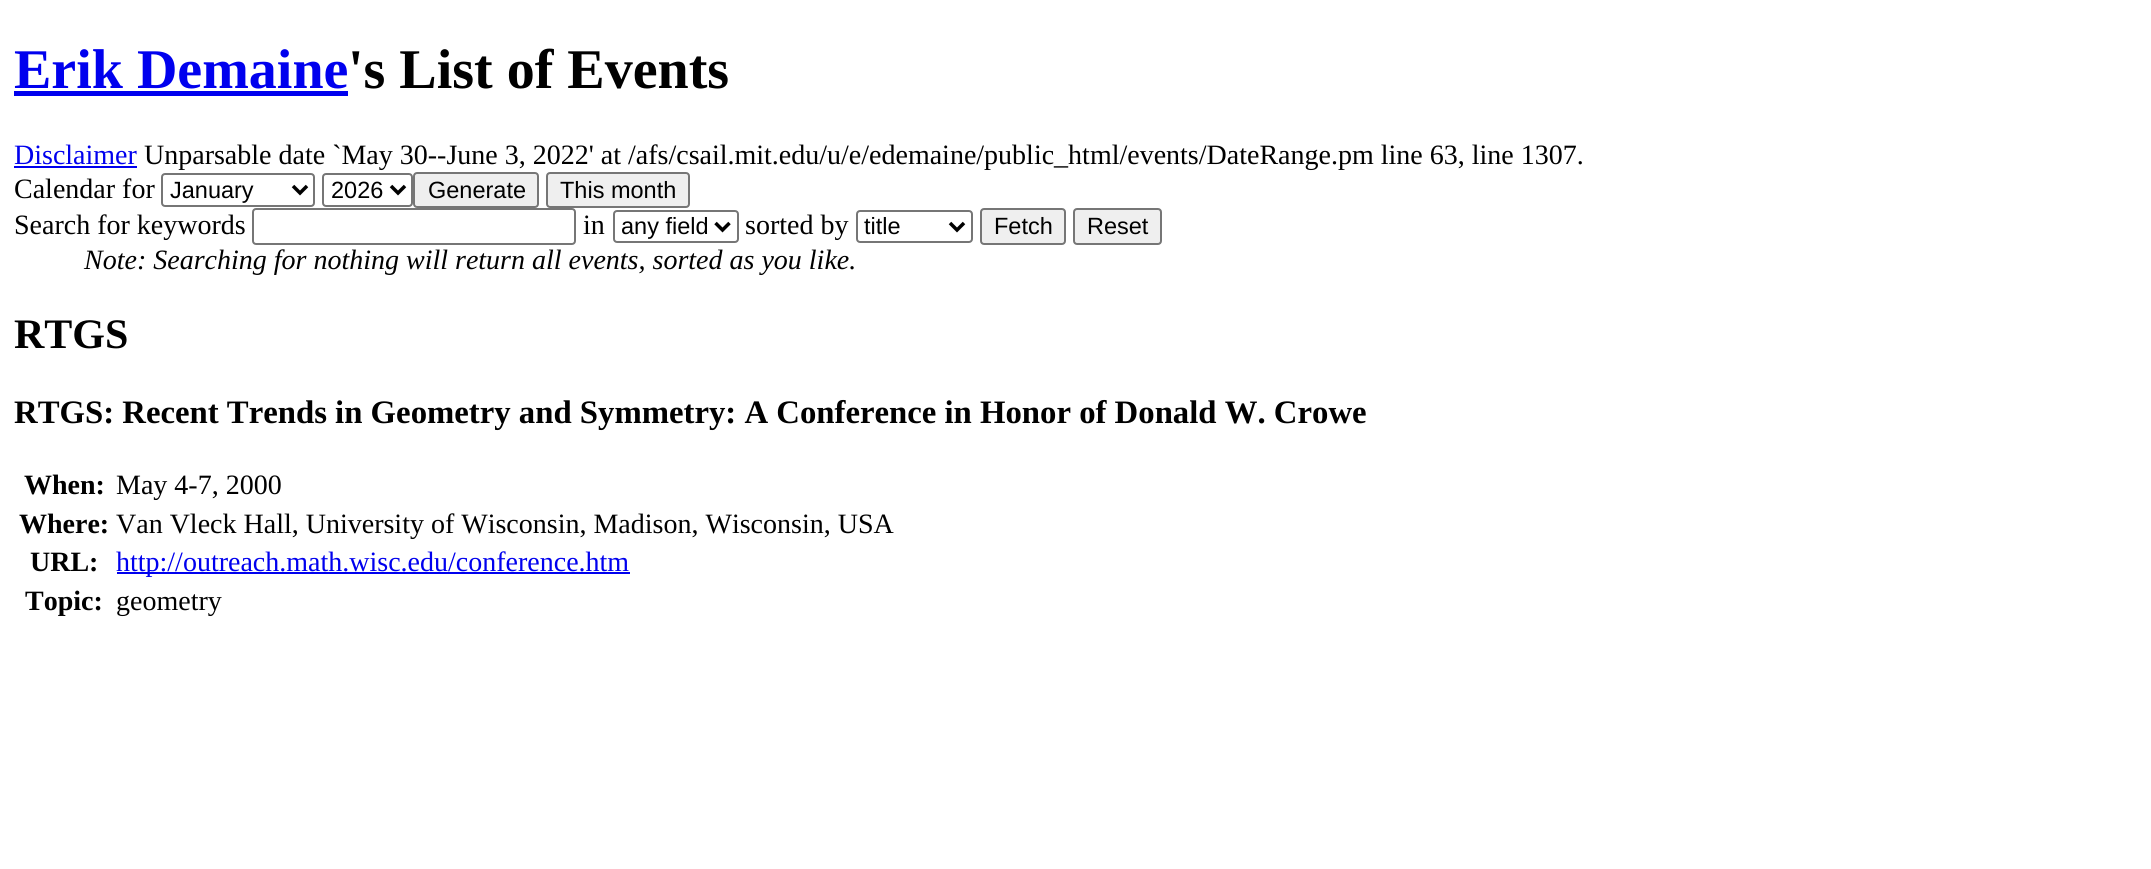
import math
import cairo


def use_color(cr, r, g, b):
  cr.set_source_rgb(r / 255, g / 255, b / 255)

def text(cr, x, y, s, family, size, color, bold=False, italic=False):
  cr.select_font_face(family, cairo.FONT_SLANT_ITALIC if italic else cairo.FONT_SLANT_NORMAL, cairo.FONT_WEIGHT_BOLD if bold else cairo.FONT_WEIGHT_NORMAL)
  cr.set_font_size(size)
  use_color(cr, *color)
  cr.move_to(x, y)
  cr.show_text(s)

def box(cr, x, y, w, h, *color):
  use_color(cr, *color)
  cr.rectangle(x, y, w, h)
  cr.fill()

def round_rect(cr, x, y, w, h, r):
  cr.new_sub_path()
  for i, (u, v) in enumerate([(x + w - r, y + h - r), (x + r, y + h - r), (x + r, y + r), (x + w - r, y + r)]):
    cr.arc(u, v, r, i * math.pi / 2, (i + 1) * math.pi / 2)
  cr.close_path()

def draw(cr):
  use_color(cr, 255, 255, 255)
  cr.paint()
  box(cr, 14, 91, 334, 5, 0, 0, 238)
  box(cr, 14, 166, 123, 2, 0, 0, 238)
  round_rect(cr, 162, 174, 152, 32, 3)
  use_color(cr, 118, 118, 118)
  cr.stroke()
  cr.new_path()
  cr.move_to(293, 186)
  cr.line_to(300, 193)
  cr.line_to(307, 186)
  use_color(cr, 0, 0, 0)
  cr.set_line_width(3.5)
  cr.stroke()
  round_rect(cr, 323, 174, 89, 32, 3)
  use_color(cr, 118, 118, 118)
  cr.set_line_width(2)
  cr.stroke()
  cr.new_path()
  cr.move_to(391, 186)
  cr.line_to(398, 193)
  cr.line_to(405, 186)
  use_color(cr, 0, 0, 0)
  cr.set_line_width(3.5)
  cr.stroke()
  use_color(cr, 239, 239, 239)
  round_rect(cr, 414, 173, 124, 34, 3)
  cr.fill_preserve()
  use_color(cr, 118, 118, 118)
  cr.set_line_width(2)
  cr.stroke()
  use_color(cr, 239, 239, 239)
  round_rect(cr, 547, 173, 142, 34, 3)
  cr.fill_preserve()
  use_color(cr, 118, 118, 118)
  cr.stroke()
  round_rect(cr, 253, 209, 322, 35, 3)
  cr.stroke()
  round_rect(cr, 614, 211, 124, 31, 3)
  cr.stroke()
  cr.new_path()
  cr.move_to(715.5, 223)
  cr.line_to(722.5, 230)
  cr.line_to(729.5, 223)
  use_color(cr, 0, 0, 0)
  cr.set_line_width(3.5)
  cr.stroke()
  round_rect(cr, 857, 211, 115, 31, 3)
  use_color(cr, 118, 118, 118)
  cr.set_line_width(2)
  cr.stroke()
  cr.new_path()
  cr.move_to(950, 223)
  cr.line_to(957, 230)
  cr.line_to(964, 223)
  use_color(cr, 0, 0, 0)
  cr.set_line_width(3.5)
  cr.stroke()
  use_color(cr, 239, 239, 239)
  round_rect(cr, 981, 209, 84, 35, 3)
  cr.fill_preserve()
  use_color(cr, 118, 118, 118)
  cr.set_line_width(2)
  cr.stroke()
  use_color(cr, 239, 239, 239)
  round_rect(cr, 1074, 209, 87, 35, 3)
  cr.fill_preserve()
  use_color(cr, 118, 118, 118)
  cr.stroke()
  box(cr, 117, 572, 513, 2, 0, 0, 238)
  text(cr, 14, 88, "Erik Demaine", "Liberation Serif", 56, (0, 0, 238), bold=True)
  text(cr, 348, 88, "'s List of Events", "Liberation Serif", 56, (0, 0, 0), bold=True)
  text(cr, 14, 164, "Disclaimer", "Liberation Serif", 28, (0, 0, 238))
  text(cr, 144, 164, "Unparsable date `May 30--June 3, 2022' at /afs/csail.mit.edu/u/e/edemaine/public_html/events/DateRange.pm line 63, line 1307.", "Liberation Serif", 28, (0, 0, 0))
  text(cr, 14, 198, "Calendar for", "Liberation Serif", 28, (0, 0, 0))
  text(cr, 170, 198, "January", "Liberation Sans", 23.5, (0, 0, 0))
  text(cr, 331, 198, "2026", "Liberation Sans", 23.5, (0, 0, 0))
  text(cr, 428, 198, "Generate", "Liberation Sans", 23.5, (0, 0, 0))
  text(cr, 560, 198, "This month", "Liberation Sans", 23.5, (0, 0, 0))
  text(cr, 14, 234, "Search for keywords", "Liberation Serif", 28, (0, 0, 0))
  text(cr, 583, 234, "in", "Liberation Serif", 28, (0, 0, 0))
  text(cr, 621, 234, "any field", "Liberation Sans", 23.5, (0, 0, 0))
  text(cr, 745, 234, "sorted by", "Liberation Serif", 28, (0, 0, 0))
  text(cr, 864, 234, "title", "Liberation Sans", 23.5, (0, 0, 0))
  text(cr, 994, 234, "Fetch", "Liberation Sans", 23.5, (0, 0, 0))
  text(cr, 1087, 234, "Reset", "Liberation Sans", 23.5, (0, 0, 0))
  text(cr, 84, 269, "Note: Searching for nothing will return all events, sorted as you like.", "Liberation Serif", 28, (0, 0, 0), italic=True)
  text(cr, 14, 348, "RTGS", "Liberation Serif", 42, (0, 0, 0), bold=True)
  text(cr, 14, 423, "RTGS: Recent Trends in Geometry and Symmetry: A Conference in Honor of Donald W. Crowe", "Liberation Serif", 32.75, (0, 0, 0), bold=True)
  text(cr, 24, 494, "When:", "Liberation Serif", 28, (0, 0, 0), bold=True)
  text(cr, 116, 494, "May 4-7, 2000", "Liberation Serif", 28, (0, 0, 0))
  text(cr, 19, 533, "Where:", "Liberation Serif", 28, (0, 0, 0), bold=True)
  text(cr, 116, 533, "Van Vleck Hall, University of Wisconsin, Madison, Wisconsin, USA", "Liberation Serif", 28, (0, 0, 0))
  text(cr, 30, 571, "URL:", "Liberation Serif", 28, (0, 0, 0), bold=True)
  text(cr, 116, 571, "http://outreach.math.wisc.edu/conference.htm", "Liberation Serif", 28, (0, 0, 238))
  text(cr, 25, 610, "Topic:", "Liberation Serif", 28, (0, 0, 0), bold=True)
  text(cr, 116, 610, "geometry", "Liberation Serif", 28, (0, 0, 0))


surface = cairo.ImageSurface(cairo.FORMAT_RGB24, 2151, 869)
cr = cairo.Context(surface)
options = cairo.FontOptions()
options.set_hint_metrics(cairo.HINT_METRICS_OFF)
options.set_hint_style(cairo.HINT_STYLE_NONE)
cr.set_font_options(options)
cr.set_miter_limit(4)
draw(cr)
surface.write_to_png("out.png")
